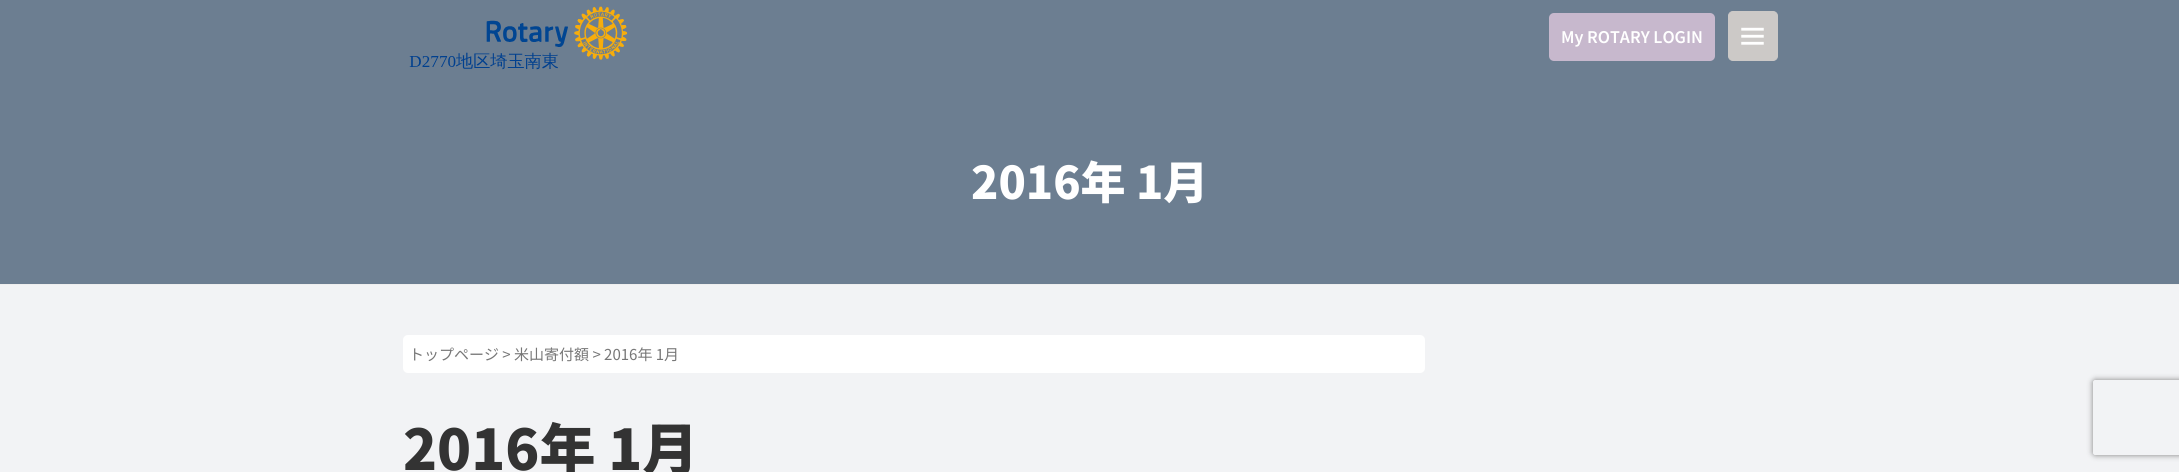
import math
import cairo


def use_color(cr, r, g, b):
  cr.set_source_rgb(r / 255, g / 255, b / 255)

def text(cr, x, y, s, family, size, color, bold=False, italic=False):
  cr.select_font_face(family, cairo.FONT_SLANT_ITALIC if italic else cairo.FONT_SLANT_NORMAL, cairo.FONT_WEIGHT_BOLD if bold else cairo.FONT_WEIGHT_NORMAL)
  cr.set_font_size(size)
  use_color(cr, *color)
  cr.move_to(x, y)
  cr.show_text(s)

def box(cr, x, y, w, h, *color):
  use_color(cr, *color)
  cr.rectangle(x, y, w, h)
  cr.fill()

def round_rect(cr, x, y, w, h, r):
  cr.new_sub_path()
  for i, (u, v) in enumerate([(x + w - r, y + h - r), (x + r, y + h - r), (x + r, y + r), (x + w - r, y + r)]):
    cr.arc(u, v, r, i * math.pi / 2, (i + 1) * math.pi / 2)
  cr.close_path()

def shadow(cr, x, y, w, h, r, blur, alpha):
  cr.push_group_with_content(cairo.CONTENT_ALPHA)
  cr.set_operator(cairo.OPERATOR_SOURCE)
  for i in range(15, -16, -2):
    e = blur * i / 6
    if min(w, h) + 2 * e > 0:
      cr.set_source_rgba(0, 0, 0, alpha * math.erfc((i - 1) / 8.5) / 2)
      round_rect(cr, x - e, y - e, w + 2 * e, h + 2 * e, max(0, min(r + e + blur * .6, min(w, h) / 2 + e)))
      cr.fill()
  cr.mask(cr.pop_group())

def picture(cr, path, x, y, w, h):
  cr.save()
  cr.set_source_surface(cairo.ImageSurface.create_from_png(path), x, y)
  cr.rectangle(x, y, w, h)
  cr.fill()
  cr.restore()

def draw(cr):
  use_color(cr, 242, 243, 245)
  cr.paint()
  box(cr, 0, 0, 2179, 284, 108, 126, 145)
  picture(cr, "img_01.png", 409, 6, 219, 64)
  use_color(cr, 199, 184, 205)
  round_rect(cr, 1549, 13, 166, 48, 5)
  cr.fill()
  use_color(cr, 204, 201, 199)
  round_rect(cr, 1728.5, 11.5, 49, 49, 4.5)
  cr.fill_preserve()
  cr.set_line_width(1)
  cr.stroke()
  picture(cr, "img_02.png", 1741, 27, 23, 18)
  box(cr, 0, 284, 2179, 1, 238, 238, 238)
  use_color(cr, 255, 255, 255)
  round_rect(cr, 403, 335, 1022, 38, 5)
  cr.fill()
  cr.save()
  cr.set_fill_rule(cairo.FILL_RULE_EVEN_ODD)
  cr.new_path()
  cr.move_to(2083, 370)
  cr.line_to(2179, 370)
  cr.line_to(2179, 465)
  cr.line_to(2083, 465)
  cr.close_path()
  cr.move_to(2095.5, 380)
  cr.line_to(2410.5, 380)
  cr.curve_to(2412, 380, 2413, 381, 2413, 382.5)
  cr.line_to(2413, 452.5)
  cr.curve_to(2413, 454, 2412, 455, 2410.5, 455)
  cr.line_to(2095.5, 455)
  cr.curve_to(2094, 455, 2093, 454, 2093, 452.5)
  cr.line_to(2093, 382.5)
  cr.curve_to(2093, 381, 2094, 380, 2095.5, 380)
  cr.close_path()
  cr.clip()
  use_color(cr, 128, 128, 128)
  shadow(cr, 2093, 380, 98, 75, 2.5, 3, 1)
  cr.restore()
  text(cr, 1561, 43, "My ROTARY LOGIN", "Noto Sans JP SemiBold", 16, (255, 255, 255))
  text(cr, 971, 199, "2016年 1月", "Noto Sans JP Black", 45, (255, 255, 255))
  text(cr, 409, 360, "トップページ > 米山寄付額 > 2016年 1月", "Noto Sans JP", 15, (119, 119, 119))
  text(cr, 403, 470, "2016年 1月", "Noto Sans JP Black", 56, (51, 51, 51))


surface = cairo.ImageSurface(cairo.FORMAT_RGB24, 2179, 472)
cr = cairo.Context(surface)
options = cairo.FontOptions()
options.set_hint_metrics(cairo.HINT_METRICS_OFF)
options.set_hint_style(cairo.HINT_STYLE_NONE)
cr.set_font_options(options)
cr.set_miter_limit(4)
draw(cr)
surface.write_to_png("out.png")
